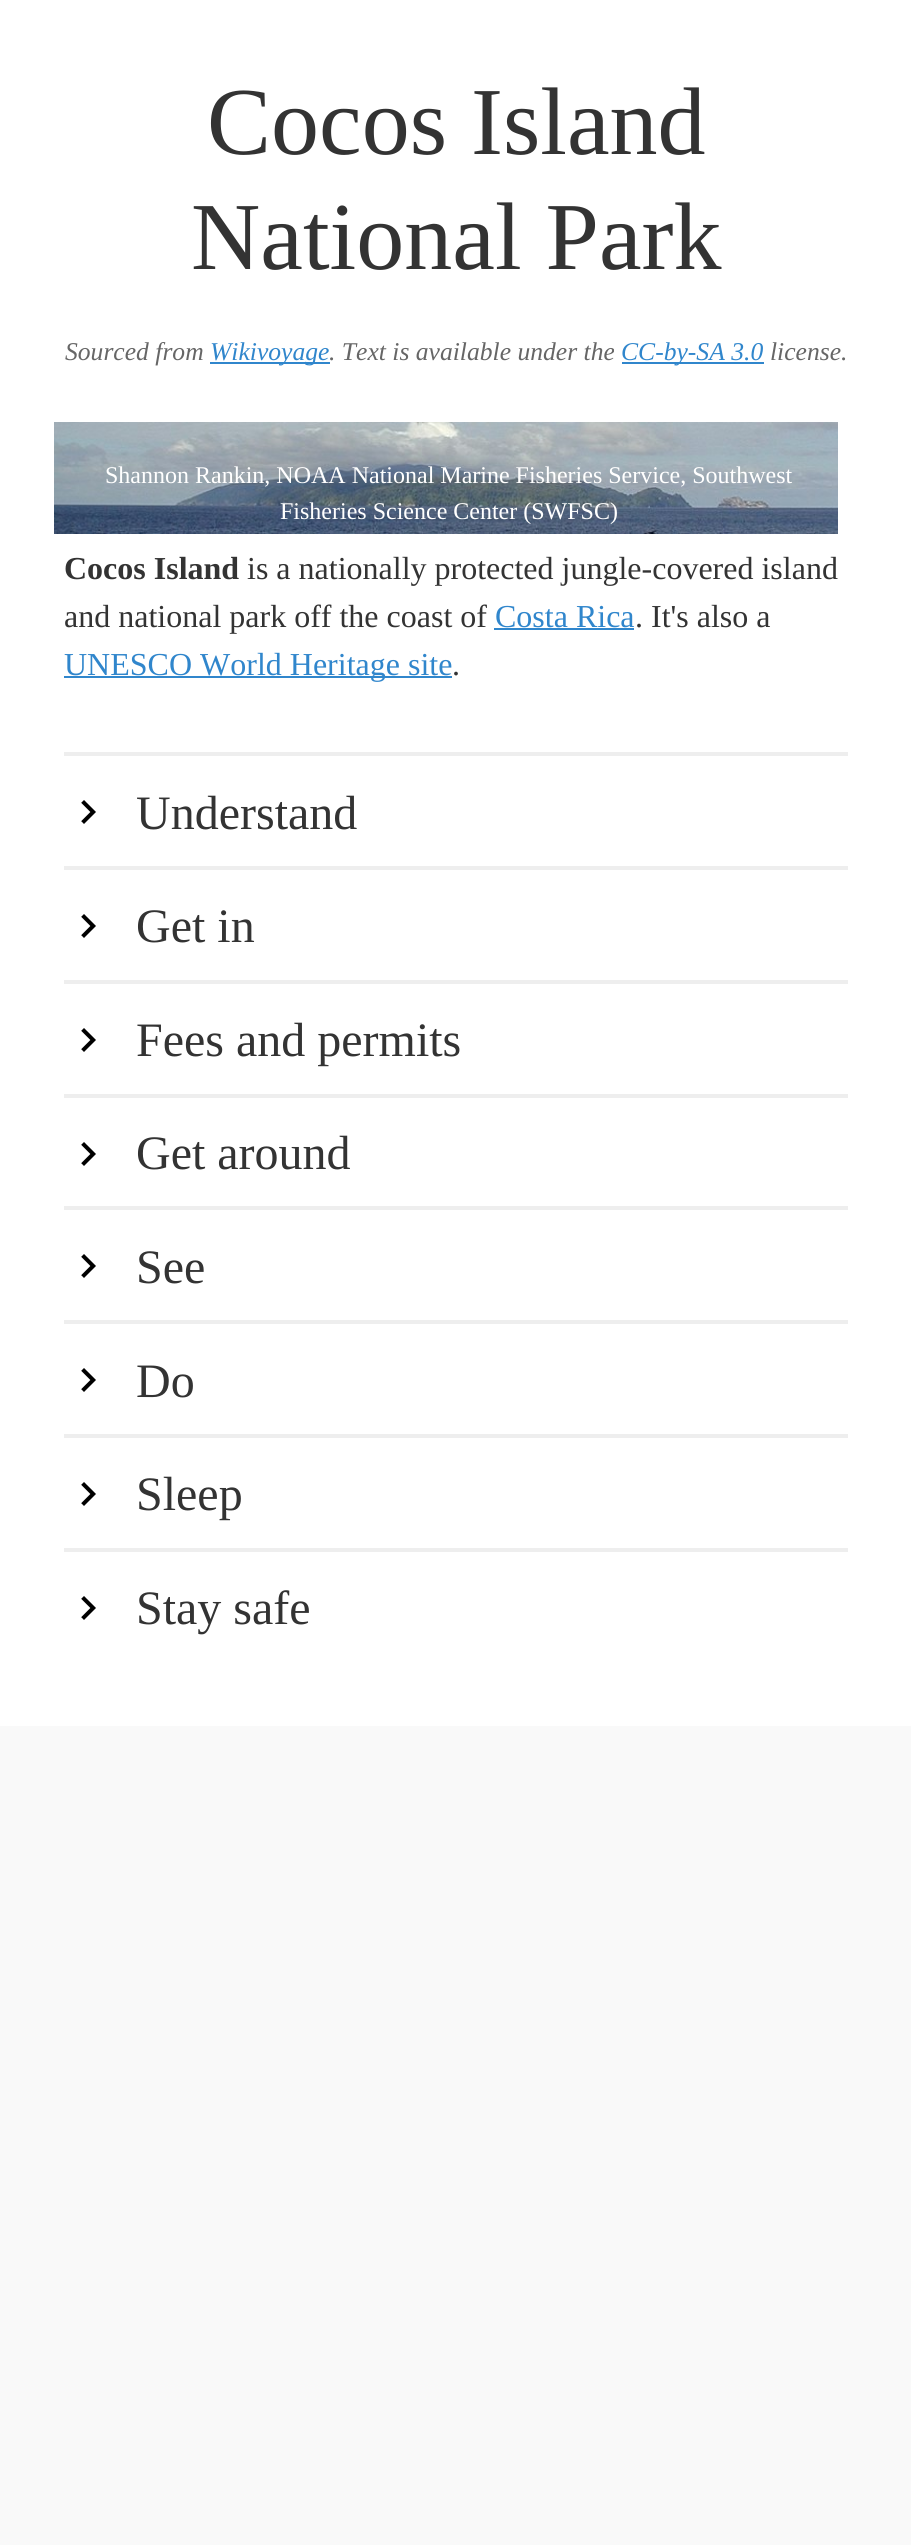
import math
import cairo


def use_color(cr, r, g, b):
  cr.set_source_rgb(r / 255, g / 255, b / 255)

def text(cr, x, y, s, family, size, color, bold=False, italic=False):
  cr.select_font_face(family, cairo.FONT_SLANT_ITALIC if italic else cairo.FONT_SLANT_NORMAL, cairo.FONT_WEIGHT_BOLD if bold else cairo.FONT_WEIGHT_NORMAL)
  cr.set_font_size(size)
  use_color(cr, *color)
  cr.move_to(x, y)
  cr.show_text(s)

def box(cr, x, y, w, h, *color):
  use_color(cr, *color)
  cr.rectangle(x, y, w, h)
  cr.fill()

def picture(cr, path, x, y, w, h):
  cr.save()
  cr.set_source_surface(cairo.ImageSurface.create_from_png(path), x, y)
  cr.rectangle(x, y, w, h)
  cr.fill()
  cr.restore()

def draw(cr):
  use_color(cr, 249, 249, 249)
  cr.paint()
  box(cr, 0, 0, 911, 1726, 255, 255, 255)
  box(cr, 210, 362, 120, 2, 48, 134, 204)
  box(cr, 622, 362, 142, 2, 48, 134, 204)
  picture(cr, "img_01.png", 54, 422, 784, 112)
  box(cr, 494, 628, 140, 2, 48, 134, 204)
  box(cr, 64, 676, 388, 2, 48, 134, 204)
  box(cr, 64, 752, 784, 4, 238, 238, 238)
  picture(cr, "img_02.png", 81, 800, 15, 24)
  box(cr, 64, 866, 784, 4, 238, 238, 238)
  picture(cr, "img_02.png", 81, 914, 15, 24)
  box(cr, 64, 980, 784, 4, 238, 238, 238)
  picture(cr, "img_02.png", 81, 1028, 15, 24)
  box(cr, 64, 1094, 784, 4, 238, 238, 238)
  picture(cr, "img_02.png", 81, 1142, 15, 24)
  box(cr, 64, 1206, 784, 4, 238, 238, 238)
  picture(cr, "img_02.png", 81, 1254, 15, 24)
  box(cr, 64, 1320, 784, 4, 238, 238, 238)
  picture(cr, "img_02.png", 81, 1368, 15, 24)
  box(cr, 64, 1434, 784, 4, 238, 238, 238)
  picture(cr, "img_02.png", 81, 1482, 15, 24)
  box(cr, 64, 1548, 784, 4, 238, 238, 238)
  picture(cr, "img_02.png", 81, 1596, 15, 24)
  text(cr, 207, 154, "Cocos Island", "Liberation Serif", 96, (51, 51, 51))
  text(cr, 191, 269, "National Park", "Liberation Serif", 96, (51, 51, 51))
  text(cr, 65, 360, "Sourced from", "Liberation Serif", 25.6, (102, 102, 102), italic=True)
  text(cr, 210, 360, "Wikivoyage", "Liberation Serif", 25.6, (48, 134, 204), italic=True)
  text(cr, 329, 360, ". Text is available under the", "Liberation Serif", 25.6, (102, 102, 102), italic=True)
  text(cr, 621, 360, "CC-by-SA 3.0", "Liberation Serif", 25.6, (48, 134, 204), italic=True)
  text(cr, 770, 360, "license.", "Liberation Serif", 25.6, (102, 102, 102), italic=True)
  text(cr, 105, 483, "Shannon Rankin, NOAA National Marine Fisheries Service, Southwest", "Liberation Serif", 24, (255, 255, 255))
  text(cr, 280, 519, "Fisheries Science Center (SWFSC)", "Liberation Serif", 24, (255, 255, 255))
  text(cr, 64, 579, "Cocos Island", "Liberation Serif", 32, (51, 51, 51), bold=True)
  text(cr, 247, 579, "is a nationally protected jungle-covered island", "Liberation Serif", 32, (51, 51, 51))
  text(cr, 64, 627, "and national park off the coast of", "Liberation Serif", 32, (51, 51, 51))
  text(cr, 495, 627, "Costa Rica", "Liberation Serif", 32, (48, 134, 204))
  text(cr, 635, 627, ". It's also a", "Liberation Serif", 32, (51, 51, 51))
  text(cr, 64, 675, "UNESCO World Heritage site", "Liberation Serif", 32, (48, 134, 204))
  text(cr, 452, 675, ".", "Liberation Serif", 32, (51, 51, 51))
  text(cr, 136, 829, "Understand", "Liberation Serif", 48, (51, 51, 51))
  text(cr, 136, 942, "Get in", "Liberation Serif", 48, (51, 51, 51))
  text(cr, 136, 1056, "Fees and permits", "Liberation Serif", 48, (51, 51, 51))
  text(cr, 136, 1169, "Get around", "Liberation Serif", 48, (51, 51, 51))
  text(cr, 136, 1283, "See", "Liberation Serif", 48, (51, 51, 51))
  text(cr, 136, 1397, "Do", "Liberation Serif", 48, (51, 51, 51))
  text(cr, 136, 1510, "Sleep", "Liberation Serif", 48, (51, 51, 51))
  text(cr, 136, 1624, "Stay safe", "Liberation Serif", 48, (51, 51, 51))


surface = cairo.ImageSurface(cairo.FORMAT_RGB24, 911, 2545)
cr = cairo.Context(surface)
options = cairo.FontOptions()
options.set_hint_metrics(cairo.HINT_METRICS_OFF)
options.set_hint_style(cairo.HINT_STYLE_NONE)
cr.set_font_options(options)
cr.set_miter_limit(4)
draw(cr)
surface.write_to_png("out.png")
